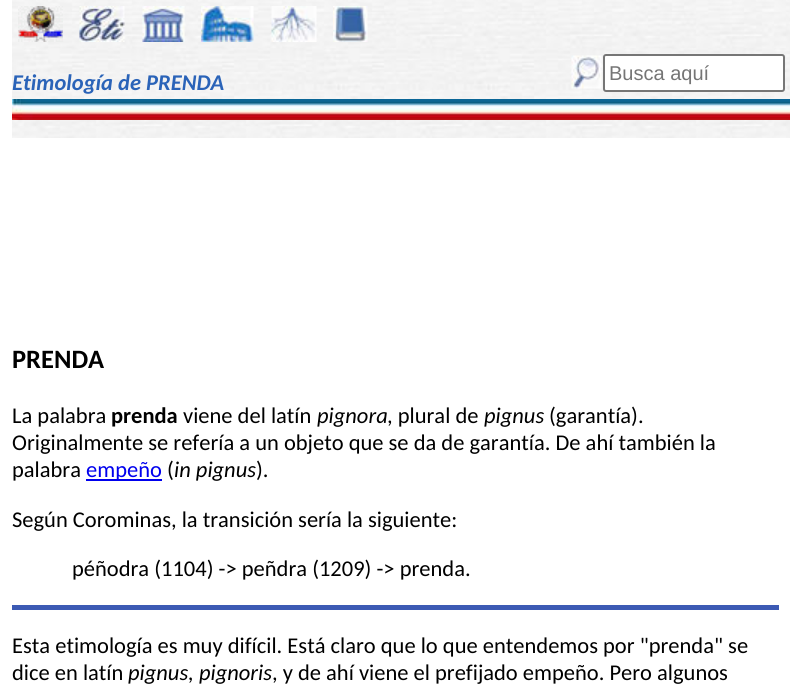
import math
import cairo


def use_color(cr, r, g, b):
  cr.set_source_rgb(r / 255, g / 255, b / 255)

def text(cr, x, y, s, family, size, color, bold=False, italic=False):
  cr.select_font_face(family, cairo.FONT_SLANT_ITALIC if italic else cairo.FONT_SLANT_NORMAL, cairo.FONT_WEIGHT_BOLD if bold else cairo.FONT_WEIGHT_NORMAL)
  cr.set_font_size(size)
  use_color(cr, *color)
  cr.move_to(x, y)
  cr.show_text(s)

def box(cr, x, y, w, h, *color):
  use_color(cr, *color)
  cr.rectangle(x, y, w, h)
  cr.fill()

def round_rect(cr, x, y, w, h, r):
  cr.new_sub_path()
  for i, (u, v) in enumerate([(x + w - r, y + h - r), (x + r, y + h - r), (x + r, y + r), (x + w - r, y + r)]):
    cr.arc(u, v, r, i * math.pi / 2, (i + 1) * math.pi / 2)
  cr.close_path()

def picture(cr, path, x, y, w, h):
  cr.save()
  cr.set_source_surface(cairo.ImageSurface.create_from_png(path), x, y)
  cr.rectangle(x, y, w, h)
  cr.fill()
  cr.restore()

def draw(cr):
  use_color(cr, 255, 255, 255)
  cr.paint()
  picture(cr, "img_01.png", 12, 0, 778, 138)
  picture(cr, "img_02.png", 18, 6, 45, 36)
  picture(cr, "img_03.png", 79, 6, 46, 36)
  picture(cr, "img_04.png", 142, 6, 43, 36)
  picture(cr, "img_05.png", 201, 6, 53, 36)
  picture(cr, "img_06.png", 271, 6, 46, 36)
  picture(cr, "img_07.png", 333, 6, 35, 36)
  picture(cr, "img_08.png", 571, 55, 31, 34)
  use_color(cr, 255, 255, 255)
  round_rect(cr, 604, 55, 180, 36, 2)
  cr.fill_preserve()
  use_color(cr, 118, 118, 118)
  cr.stroke()
  picture(cr, "img_09.png", 12, 99, 778, 21)
  box(cr, 86, 479, 76, 2, 0, 0, 238)
  box(cr, 12, 605, 767, 5, 60, 90, 180)
  text(cr, 12, 90, "Etimología de PRENDA", "Carlito", 22.5, (42, 99, 184), bold=True, italic=True)
  text(cr, 609, 80, "Busca aquí", "Liberation Sans", 20, (117, 117, 117))
  text(cr, 12, 368, "PRENDA", "Carlito", 26.5, (0, 0, 0), bold=True)
  text(cr, 12, 423, "La palabra", "Carlito", 22.5, (0, 0, 0))
  text(cr, 111, 423, "prenda", "Carlito", 22.5, (0, 0, 0), bold=True)
  text(cr, 183, 423, "viene del latín", "Carlito", 22.5, (0, 0, 0))
  text(cr, 317, 423, "pignora", "Carlito", 22.5, (0, 0, 0), italic=True)
  text(cr, 387, 423, ", plural de", "Carlito", 22.5, (0, 0, 0))
  text(cr, 484, 423, "pignus", "Carlito", 22.5, (0, 0, 0), italic=True)
  text(cr, 549, 423, "(garantía).", "Carlito", 22.5, (0, 0, 0))
  text(cr, 12, 450, "Originalmente se refería a un objeto que se da de garantía. De ahí también la", "Carlito", 22.5, (0, 0, 0))
  text(cr, 12, 477, "palabra", "Carlito", 22.5, (0, 0, 0))
  text(cr, 86, 477, "empeño", "Carlito", 22.5, (0, 0, 238))
  text(cr, 167, 477, "(", "Carlito", 22.5, (0, 0, 0))
  text(cr, 174, 477, "in pignus", "Carlito", 22.5, (0, 0, 0), italic=True)
  text(cr, 256, 477, ").", "Carlito", 22.5, (0, 0, 0))
  text(cr, 12, 527, "Según Corominas, la transición sería la siguiente:", "Carlito", 22.5, (0, 0, 0))
  text(cr, 72, 576, "péñodra (1104) -> peñdra (1209) -> prenda.", "Carlito", 22.5, (0, 0, 0))
  text(cr, 12, 653, "Esta etimología es muy difícil. Está claro que lo que entendemos por \"prenda\" se", "Carlito", 22.5, (0, 0, 0))
  text(cr, 12, 680, "dice en latín", "Carlito", 22.5, (0, 0, 0))
  text(cr, 128, 680, "pignus, pignoris", "Carlito", 22.5, (0, 0, 0), italic=True)
  text(cr, 272, 680, ", y de ahí viene el prefijado empeño. Pero algunos", "Carlito", 22.5, (0, 0, 0))


surface = cairo.ImageSurface(cairo.FORMAT_RGB24, 790, 684)
cr = cairo.Context(surface)
options = cairo.FontOptions()
options.set_hint_metrics(cairo.HINT_METRICS_OFF)
options.set_hint_style(cairo.HINT_STYLE_NONE)
cr.set_font_options(options)
cr.set_miter_limit(4)
draw(cr)
surface.write_to_png("out.png")
